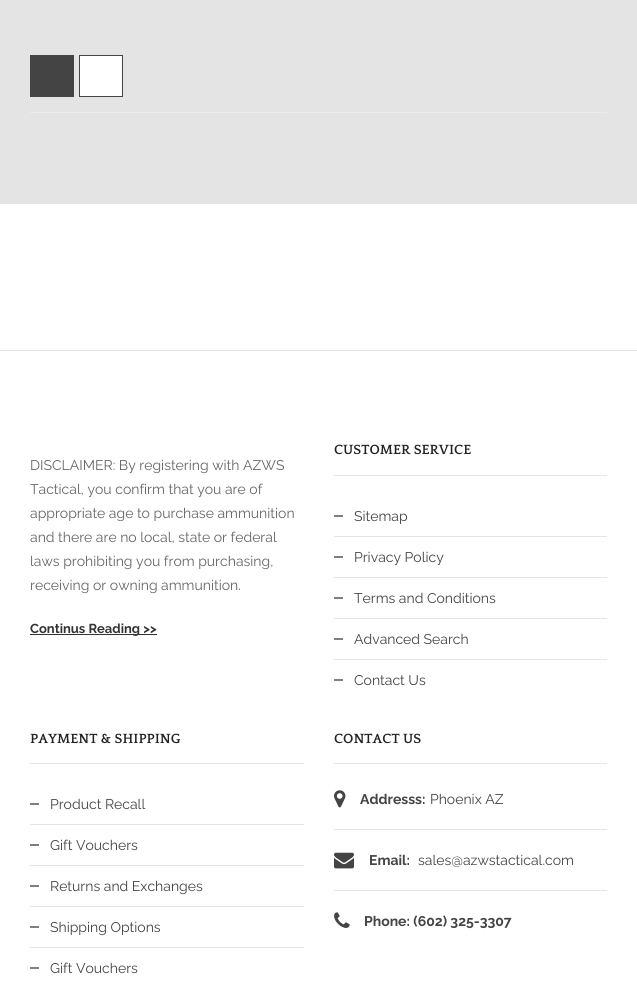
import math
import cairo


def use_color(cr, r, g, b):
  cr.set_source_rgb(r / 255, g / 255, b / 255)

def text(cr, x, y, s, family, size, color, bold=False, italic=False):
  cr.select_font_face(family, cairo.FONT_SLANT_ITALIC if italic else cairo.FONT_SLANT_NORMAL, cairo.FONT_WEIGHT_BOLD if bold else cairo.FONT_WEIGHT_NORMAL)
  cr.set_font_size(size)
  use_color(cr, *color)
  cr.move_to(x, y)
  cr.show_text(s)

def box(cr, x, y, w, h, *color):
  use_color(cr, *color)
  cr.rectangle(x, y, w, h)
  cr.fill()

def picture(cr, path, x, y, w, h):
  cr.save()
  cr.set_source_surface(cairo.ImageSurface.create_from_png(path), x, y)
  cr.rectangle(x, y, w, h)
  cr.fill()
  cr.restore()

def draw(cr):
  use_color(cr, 228, 228, 228)
  cr.paint()
  box(cr, 30, 112, 577, 1, 235, 235, 235)
  box(cr, 30, 55, 44, 42, 68, 68, 68)
  use_color(cr, 255, 255, 255)
  cr.rectangle(79.5, 55.5, 43, 41)
  cr.fill_preserve()
  use_color(cr, 68, 68, 68)
  cr.set_line_width(1)
  cr.stroke()
  box(cr, 0, 204, 637, 146, 255, 255, 255)
  box(cr, 0, 351, 637, 654, 255, 255, 255)
  box(cr, 30, 634, 127, 1, 51, 51, 51)
  box(cr, 334, 475, 273, 1, 229, 229, 229)
  box(cr, 334, 536, 273, 1, 229, 229, 229)
  box(cr, 334, 515, 9, 2, 127, 127, 127)
  box(cr, 334, 577, 273, 1, 229, 229, 229)
  box(cr, 334, 556, 9, 2, 127, 127, 127)
  box(cr, 334, 618, 273, 1, 229, 229, 229)
  box(cr, 334, 597, 9, 2, 127, 127, 127)
  box(cr, 334, 659, 273, 1, 229, 229, 229)
  box(cr, 334, 638, 9, 2, 127, 127, 127)
  box(cr, 334, 679, 9, 2, 127, 127, 127)
  box(cr, 30, 763, 274, 1, 229, 229, 229)
  box(cr, 30, 824, 274, 1, 229, 229, 229)
  box(cr, 30, 803, 9, 2, 127, 127, 127)
  box(cr, 30, 865, 274, 1, 229, 229, 229)
  box(cr, 30, 844, 9, 2, 127, 127, 127)
  box(cr, 30, 906, 274, 1, 229, 229, 229)
  box(cr, 30, 885, 9, 2, 127, 127, 127)
  box(cr, 30, 947, 274, 1, 229, 229, 229)
  box(cr, 30, 926, 9, 2, 127, 127, 127)
  box(cr, 30, 967, 9, 2, 127, 127, 127)
  box(cr, 334, 763, 273, 1, 229, 229, 229)
  box(cr, 334, 829, 273, 1, 229, 229, 229)
  picture(cr, "img_01.png", 334, 790, 12, 18)
  box(cr, 334, 890, 273, 1, 229, 229, 229)
  picture(cr, "img_02.png", 334, 852, 20, 17)
  picture(cr, "img_03.png", 334, 912, 16, 16)
  text(cr, 30, 470, "DISCLAIMER: By registering with AZWS", "Raleway", 14, (102, 102, 102))
  text(cr, 30, 494, "Tactical, you confirm that you are of", "Raleway", 14, (102, 102, 102))
  text(cr, 30, 518, "appropriate age to purchase ammunition", "Raleway", 14, (102, 102, 102))
  text(cr, 30, 542, "and there are no local, state or federal", "Raleway", 14, (102, 102, 102))
  text(cr, 30, 566, "laws prohibiting you from purchasing,", "Raleway", 14, (102, 102, 102))
  text(cr, 30, 590, "receiving or owning ammunition.", "Raleway", 14, (102, 102, 102))
  text(cr, 30, 633, "Continus Reading >>", "Raleway", 13, (51, 51, 51), bold=True)
  text(cr, 334, 454, "CUSTOMER SERVICE", "Quattrocento", 14, (34, 34, 34), bold=True)
  text(cr, 354, 521, "Sitemap", "Raleway", 14, (68, 68, 68))
  text(cr, 354, 562, "Privacy Policy", "Raleway", 14, (68, 68, 68))
  text(cr, 354, 603, "Terms and Conditions", "Raleway", 14, (68, 68, 68))
  text(cr, 354, 644, "Advanced Search", "Raleway", 14, (68, 68, 68))
  text(cr, 354, 685, "Contact Us", "Raleway", 14, (68, 68, 68))
  text(cr, 30, 743, "PAYMENT & SHIPPING", "Quattrocento", 14, (34, 34, 34), bold=True)
  text(cr, 50, 809, "Product Recall", "Raleway", 14, (68, 68, 68))
  text(cr, 50, 850, "Gift Vouchers", "Raleway", 14, (68, 68, 68))
  text(cr, 50, 891, "Returns and Exchanges", "Raleway", 14, (68, 68, 68))
  text(cr, 50, 932, "Shipping Options", "Raleway", 14, (68, 68, 68))
  text(cr, 50, 973, "Gift Vouchers", "Raleway", 14, (68, 68, 68))
  text(cr, 334, 743, "CONTACT US", "Quattrocento", 14, (34, 34, 34), bold=True)
  text(cr, 360, 804, "Addresss:", "Raleway", 14, (68, 68, 68), bold=True)
  text(cr, 430, 804, "Phoenix AZ", "Raleway", 14, (68, 68, 68))
  text(cr, 369, 865, "Email:", "Raleway", 14, (68, 68, 68), bold=True)
  text(cr, 418, 865, "sales@azwstactical.com", "Raleway", 14, (68, 68, 68))
  text(cr, 364, 926, "Phone: (602) 325-3307", "Raleway", 14, (68, 68, 68), bold=True)


surface = cairo.ImageSurface(cairo.FORMAT_RGB24, 637, 1005)
cr = cairo.Context(surface)
options = cairo.FontOptions()
options.set_hint_metrics(cairo.HINT_METRICS_OFF)
options.set_hint_style(cairo.HINT_STYLE_NONE)
cr.set_font_options(options)
cr.set_miter_limit(4)
draw(cr)
surface.write_to_png("out.png")
